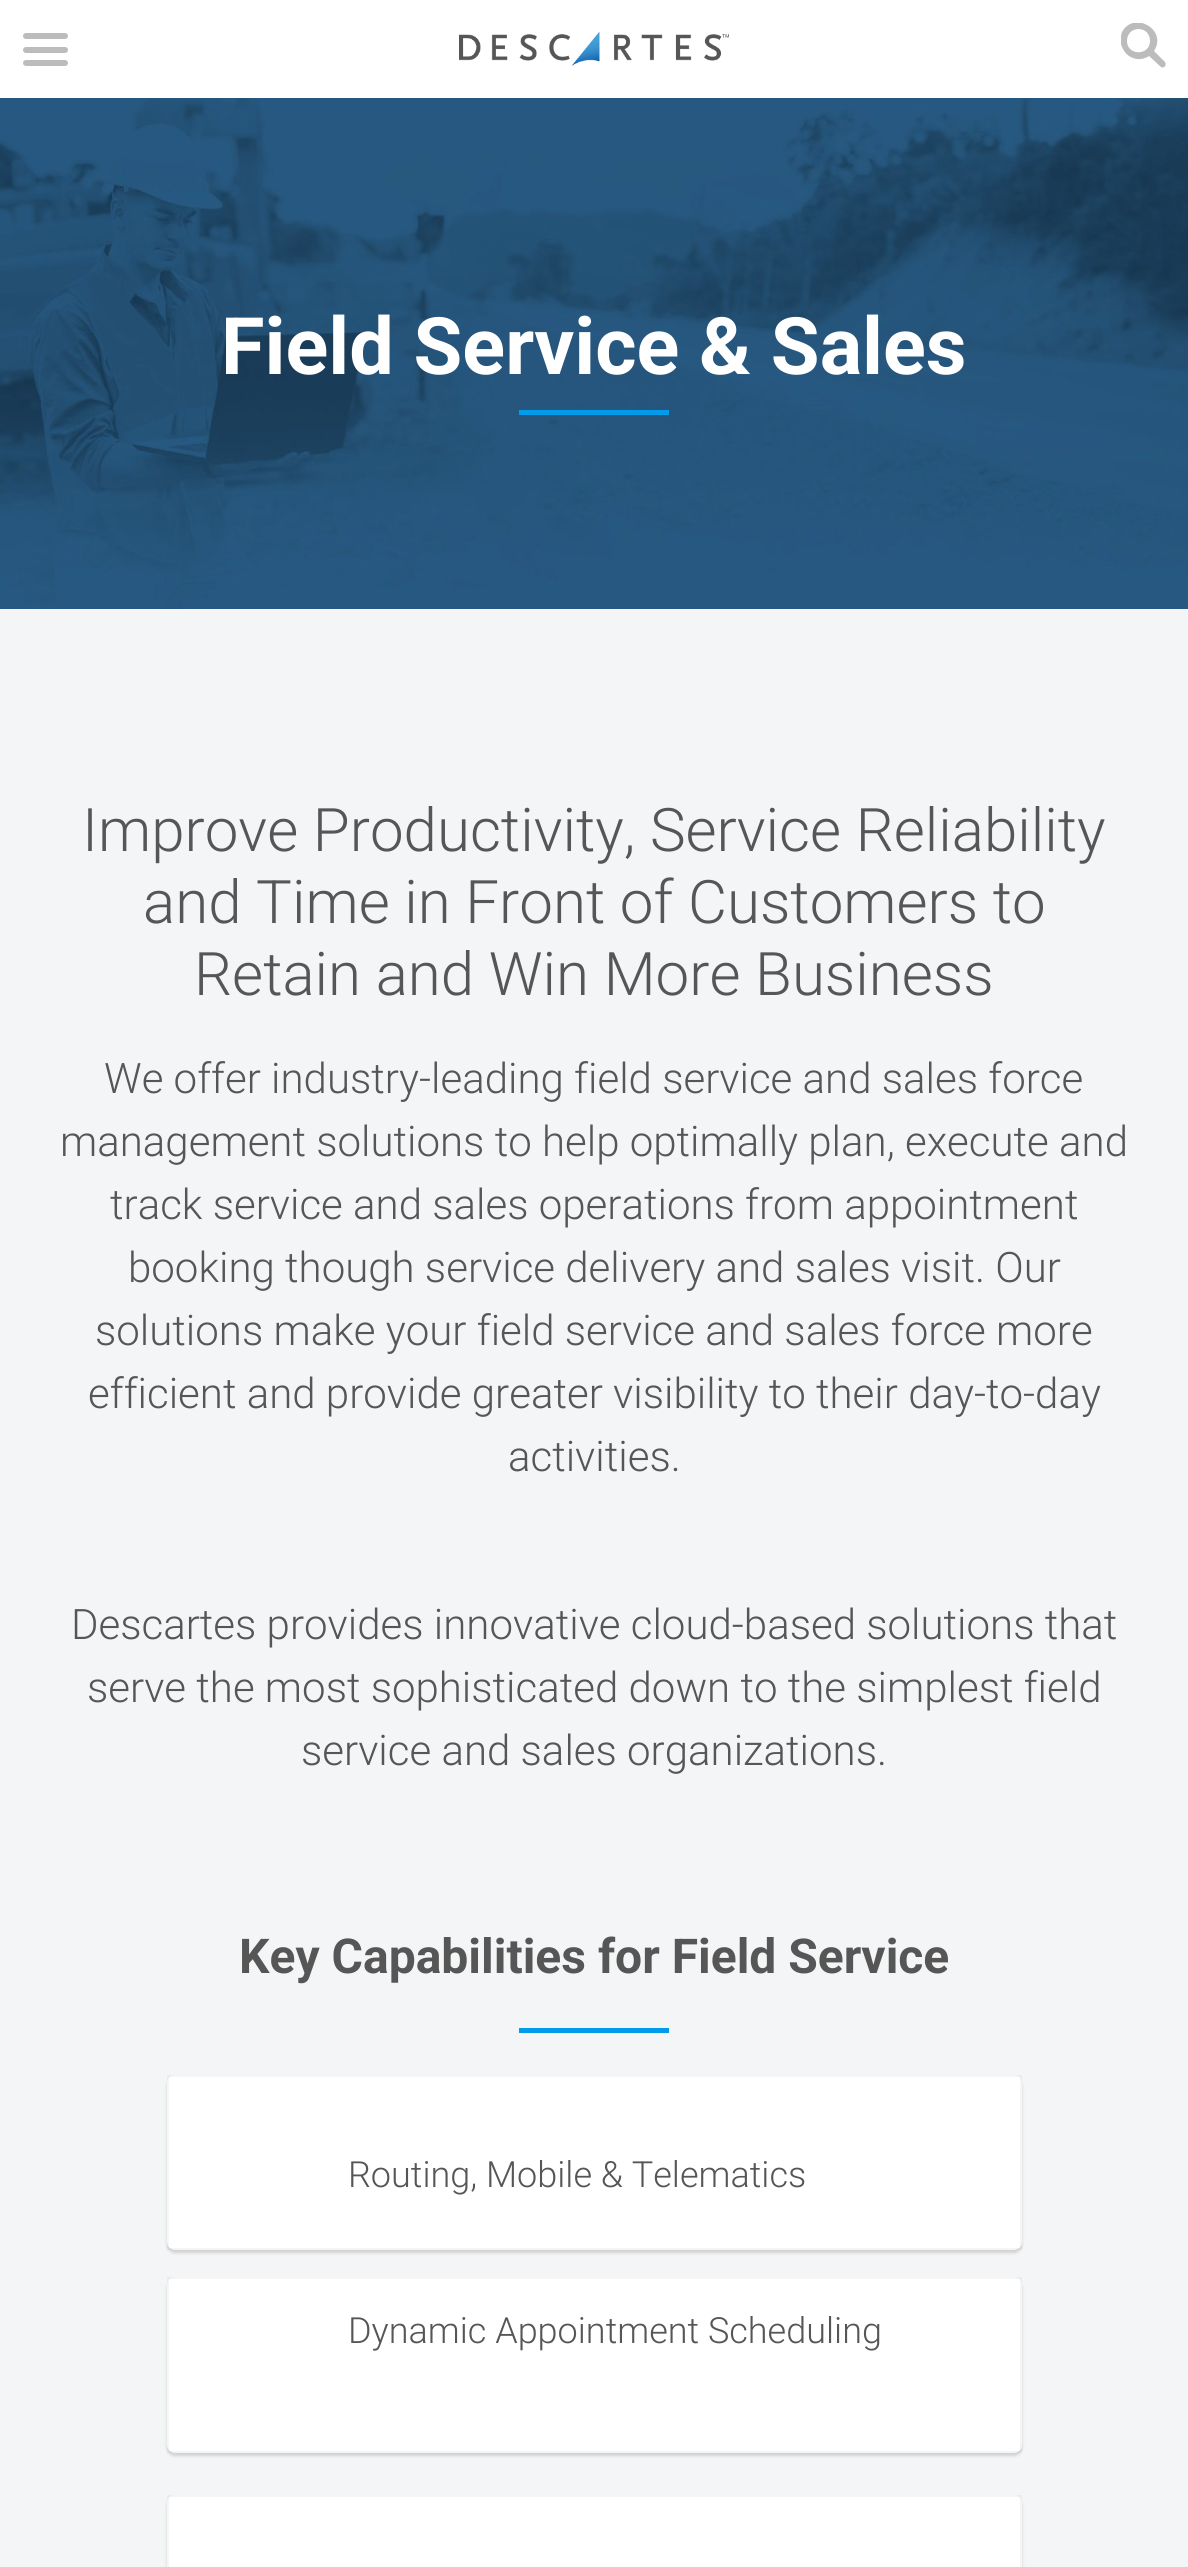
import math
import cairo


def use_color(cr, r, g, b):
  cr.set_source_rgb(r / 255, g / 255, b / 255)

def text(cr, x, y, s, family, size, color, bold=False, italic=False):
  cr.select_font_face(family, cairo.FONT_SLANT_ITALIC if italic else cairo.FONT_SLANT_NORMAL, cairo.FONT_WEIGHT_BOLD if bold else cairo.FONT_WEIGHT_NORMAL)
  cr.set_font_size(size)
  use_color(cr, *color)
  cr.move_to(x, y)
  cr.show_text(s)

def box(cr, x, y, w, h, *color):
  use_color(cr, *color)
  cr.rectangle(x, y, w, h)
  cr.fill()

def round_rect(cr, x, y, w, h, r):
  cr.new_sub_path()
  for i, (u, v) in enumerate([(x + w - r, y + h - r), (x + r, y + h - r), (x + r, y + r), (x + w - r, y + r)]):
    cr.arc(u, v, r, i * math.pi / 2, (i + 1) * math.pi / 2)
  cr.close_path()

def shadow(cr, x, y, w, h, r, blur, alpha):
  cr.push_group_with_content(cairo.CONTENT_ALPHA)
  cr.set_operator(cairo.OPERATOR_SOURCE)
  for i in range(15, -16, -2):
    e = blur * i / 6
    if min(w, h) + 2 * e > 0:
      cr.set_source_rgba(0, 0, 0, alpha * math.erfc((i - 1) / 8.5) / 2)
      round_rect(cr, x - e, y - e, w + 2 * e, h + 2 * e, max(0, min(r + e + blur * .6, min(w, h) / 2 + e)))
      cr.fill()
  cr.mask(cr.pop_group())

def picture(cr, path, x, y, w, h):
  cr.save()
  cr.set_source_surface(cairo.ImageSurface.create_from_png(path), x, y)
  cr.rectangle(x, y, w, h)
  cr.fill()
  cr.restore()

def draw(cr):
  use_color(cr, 244, 245, 246)
  cr.paint()
  box(cr, 0, 0, 1188, 98, 255, 255, 255)
  use_color(cr, 188, 188, 188)
  round_rect(cr, 23, 33, 45, 6, 3)
  cr.fill()
  round_rect(cr, 23, 47, 45, 6, 3)
  cr.fill()
  round_rect(cr, 23, 60, 45, 6, 3)
  cr.fill()
  picture(cr, "img_01.png", 459, 31, 270, 35)
  cr.save()
  cr.rectangle(1121, 23, 45, 45)
  cr.clip()
  cr.new_path()
  cr.move_to(1165, 62)
  cr.line_to(1154, 51)
  cr.curve_to(1168, 30, 1134, 10, 1122, 32)
  cr.curve_to(1120, 38, 1120, 44, 1123, 49)
  cr.curve_to(1128, 59, 1140, 62, 1149, 56)
  cr.line_to(1161, 67)
  cr.curve_to(1164, 69, 1167, 65, 1165, 62)
  cr.close_path()
  cr.move_to(1150, 41)
  cr.curve_to(1150, 56, 1127, 56, 1127, 41)
  cr.curve_to(1127, 25, 1150, 25, 1150, 41)
  cr.close_path()
  cr.fill()
  cr.restore()
  box(cr, 0, 98, 1188, 511, 30, 75, 109)
  picture(cr, "img_02.png", 0, 98, 1188, 511)
  box(cr, 519, 410, 150, 5, 0, 156, 235)
  box(cr, 519, 2028, 150, 5, 0, 156, 235)
  use_color(cr, 0, 0, 0)
  shadow(cr, 167, 2078, 855, 175, 8, 1.5, 0.15)
  use_color(cr, 255, 255, 255)
  round_rect(cr, 167, 2075, 855, 175, 8)
  cr.fill()
  cr.rectangle(168, 2076, 853, 173)
  cr.set_source_rgba(0, 0, 0, 0.04)
  cr.stroke()
  use_color(cr, 0, 0, 0)
  shadow(cr, 167, 2280, 855, 176, 8, 1.5, 0.15)
  use_color(cr, 255, 255, 255)
  round_rect(cr, 167, 2277, 855, 176, 8)
  cr.fill()
  cr.rectangle(168, 2278, 853, 174)
  cr.set_source_rgba(0, 0, 0, 0.04)
  cr.stroke()
  use_color(cr, 0, 0, 0)
  shadow(cr, 167, 2498, 855, 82, 8, 1.5, 0.15)
  use_color(cr, 255, 255, 255)
  round_rect(cr, 167, 2495, 855, 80, 8)
  cr.fill()
  cr.rectangle(168, 2496, 853, 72)
  cr.set_source_rgba(0, 0, 0, 0.04)
  cr.stroke()
  text(cr, 221, 374, "Field Service & Sales", "Roboto", 79.25, (255, 255, 255), bold=True)
  text(cr, 82, 851, "Improve Productivity, Service Reliability", "Roboto Light", 60, (86, 86, 86))
  text(cr, 143, 923, "and Time in Front of Customers to", "Roboto Light", 60, (86, 86, 86))
  text(cr, 194, 995, "Retain and Win More Business", "Roboto Light", 60, (86, 86, 86))
  text(cr, 104, 1093, "We offer industry-leading field service and sales force", "Roboto Light", 42, (86, 86, 86))
  text(cr, 60, 1156, "management solutions to help optimally plan, execute and", "Roboto Light", 42, (86, 86, 86))
  text(cr, 110, 1219, "track service and sales operations from appointment", "Roboto Light", 42, (86, 86, 86))
  text(cr, 128, 1282, "booking though service delivery and sales visit. Our", "Roboto Light", 42, (86, 86, 86))
  text(cr, 95, 1345, "solutions make your field service and sales force more", "Roboto Light", 42, (86, 86, 86))
  text(cr, 88, 1408, "efficient and provide greater visibility to their day-to-day", "Roboto Light", 42, (86, 86, 86))
  text(cr, 508, 1471, "activities.", "Roboto Light", 42, (86, 86, 86))
  text(cr, 71, 1639, "Descartes provides innovative cloud-based solutions that", "Roboto Light", 42, (86, 86, 86))
  text(cr, 87, 1702, "serve the most sophisticated down to the simplest field", "Roboto Light", 42, (86, 86, 86))
  text(cr, 301, 1765, "service and sales organizations.", "Roboto Light", 42, (86, 86, 86))
  text(cr, 239, 1973, "Key Capabilities for Field Service", "Roboto", 48, (86, 86, 86), bold=True)
  text(cr, 348, 2187, "Routing, Mobile & Telematics", "Roboto Light", 36, (86, 86, 86))
  text(cr, 348, 2343, "Dynamic Appointment Scheduling", "Roboto Light", 36, (86, 86, 86))


surface = cairo.ImageSurface(cairo.FORMAT_RGB24, 1188, 2567)
cr = cairo.Context(surface)
options = cairo.FontOptions()
options.set_hint_metrics(cairo.HINT_METRICS_OFF)
options.set_hint_style(cairo.HINT_STYLE_NONE)
cr.set_font_options(options)
cr.set_miter_limit(4)
draw(cr)
surface.write_to_png("out.png")
